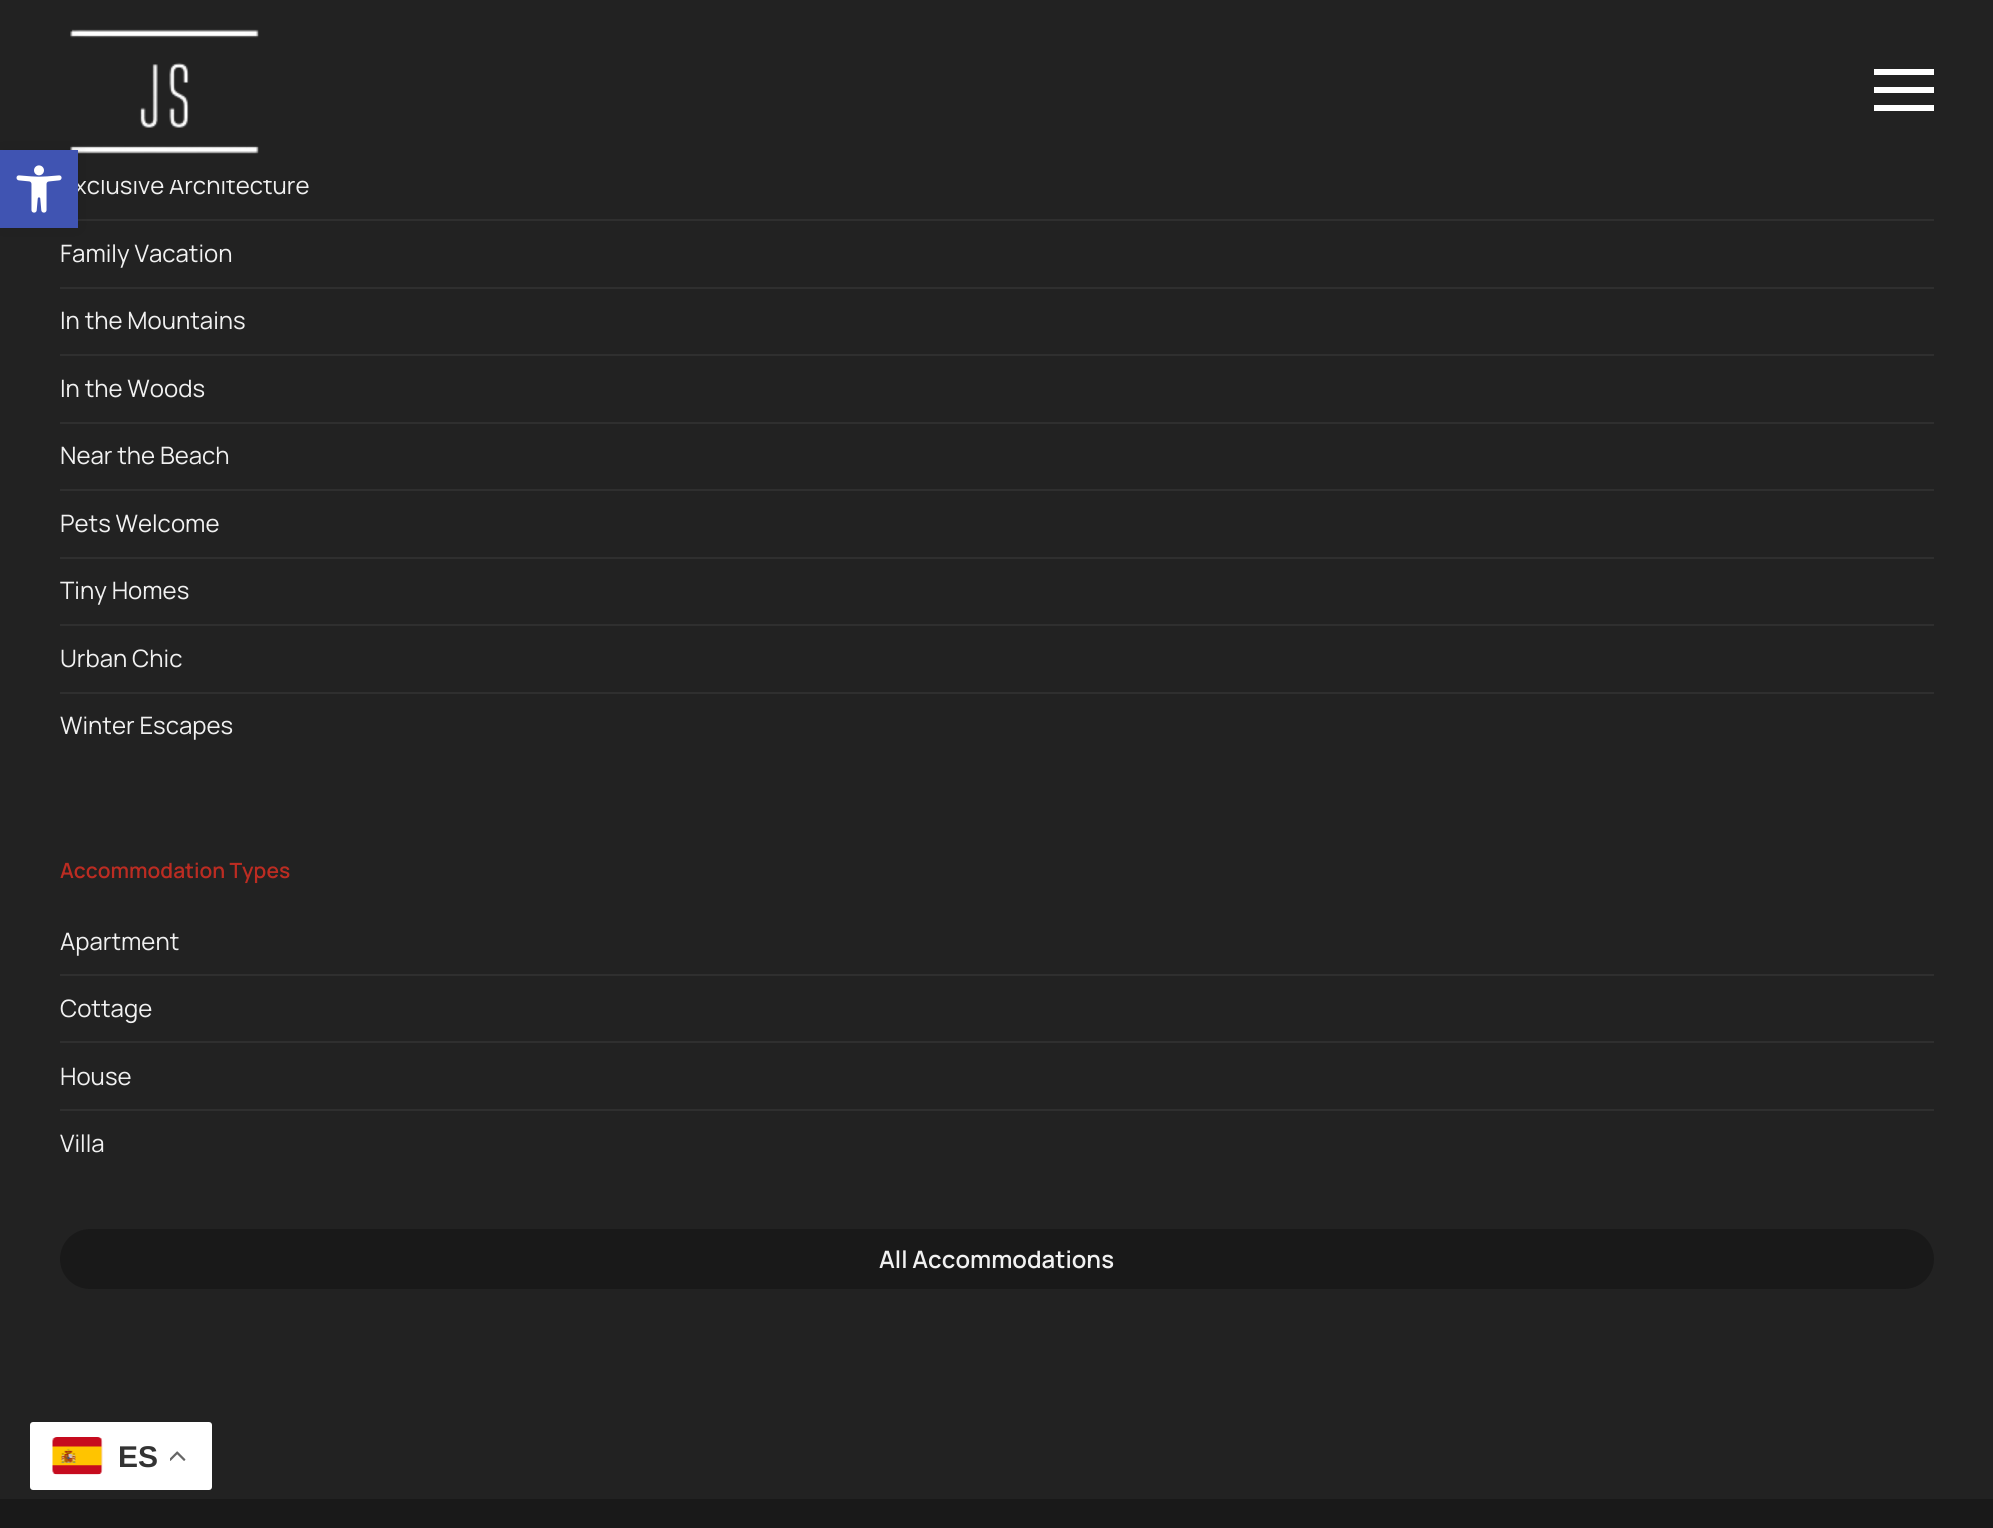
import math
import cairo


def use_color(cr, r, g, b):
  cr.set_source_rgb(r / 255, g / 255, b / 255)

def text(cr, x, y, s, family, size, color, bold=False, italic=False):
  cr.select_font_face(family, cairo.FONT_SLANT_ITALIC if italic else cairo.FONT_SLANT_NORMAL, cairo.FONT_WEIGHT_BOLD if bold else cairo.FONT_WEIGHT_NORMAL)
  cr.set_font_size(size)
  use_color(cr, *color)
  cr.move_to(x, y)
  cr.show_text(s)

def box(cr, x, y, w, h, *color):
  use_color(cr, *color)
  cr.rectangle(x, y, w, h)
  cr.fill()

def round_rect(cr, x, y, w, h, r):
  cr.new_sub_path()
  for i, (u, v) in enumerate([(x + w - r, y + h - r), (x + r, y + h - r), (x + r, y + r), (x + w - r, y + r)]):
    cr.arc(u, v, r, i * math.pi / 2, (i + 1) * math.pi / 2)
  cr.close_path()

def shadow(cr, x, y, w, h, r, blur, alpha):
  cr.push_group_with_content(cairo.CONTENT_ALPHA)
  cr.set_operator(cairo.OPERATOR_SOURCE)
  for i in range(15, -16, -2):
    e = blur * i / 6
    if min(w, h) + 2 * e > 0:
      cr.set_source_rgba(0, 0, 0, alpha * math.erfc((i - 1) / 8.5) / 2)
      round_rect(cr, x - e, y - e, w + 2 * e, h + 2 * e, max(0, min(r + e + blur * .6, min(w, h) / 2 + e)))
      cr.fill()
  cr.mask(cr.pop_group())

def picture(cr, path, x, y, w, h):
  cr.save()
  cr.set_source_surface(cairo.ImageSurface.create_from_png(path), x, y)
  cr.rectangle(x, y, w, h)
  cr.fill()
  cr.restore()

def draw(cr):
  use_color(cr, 34, 34, 34)
  cr.paint()
  picture(cr, "img_02.png", 70, 29, 189, 125)
  box(cr, 1874, 69, 60, 6, 255, 255, 255)
  box(cr, 1874, 87, 60, 6, 255, 255, 255)
  box(cr, 1874, 105, 60, 6, 255, 255, 255)
  box(cr, 78, 219, 1856, 2, 47, 47, 47)
  box(cr, 60, 287, 1874, 2, 47, 47, 47)
  box(cr, 60, 354, 1874, 2, 47, 47, 47)
  box(cr, 60, 422, 1874, 2, 47, 47, 47)
  box(cr, 60, 489, 1874, 2, 47, 47, 47)
  box(cr, 60, 557, 1874, 2, 47, 47, 47)
  box(cr, 60, 624, 1874, 2, 47, 47, 47)
  box(cr, 60, 692, 1874, 2, 47, 47, 47)
  box(cr, 60, 974, 1874, 2, 47, 47, 47)
  box(cr, 60, 1041, 1874, 2, 47, 47, 47)
  box(cr, 60, 1109, 1874, 2, 47, 47, 47)
  use_color(cr, 25, 25, 25)
  round_rect(cr, 60, 1229, 1874, 60, 30)
  cr.fill()
  box(cr, 0, 1499, 1993, 29, 25, 25, 25)
  use_color(cr, 255, 255, 255)
  round_rect(cr, 30, 1422, 182, 68, 3)
  cr.fill()
  picture(cr, "img_03.png", 52, 1437, 51, 38)
  picture(cr, "img_04.png", 170, 1451, 16, 10)
  text(cr, 74, 194, "xclusive Architecture", "Manrope ExtraLight", 24, (241, 241, 241))
  box(cr, 101, 176, 167, 4, 34, 34, 34)
  use_color(cr, 0, 0, 0)
  shadow(cr, 0, 150, 78, 78, 0, 7.5, 0.1)
  box(cr, 0, 150, 78, 78, 64, 84, 178)
  picture(cr, "img_01.png", 16, 165, 46, 48)
  text(cr, 60, 262, "Family Vacation", "Manrope ExtraLight", 24, (241, 241, 241))
  text(cr, 60, 329, "In the Mountains", "Manrope ExtraLight", 24, (241, 241, 241))
  text(cr, 60, 397, "In the Woods", "Manrope ExtraLight", 24, (241, 241, 241))
  text(cr, 60, 464, "Near the Beach", "Manrope ExtraLight", 24, (241, 241, 241))
  text(cr, 60, 532, "Pets Welcome", "Manrope ExtraLight", 24, (241, 241, 241))
  text(cr, 60, 599, "Tiny Homes", "Manrope ExtraLight", 24, (241, 241, 241))
  text(cr, 60, 667, "Urban Chic", "Manrope ExtraLight", 24, (241, 241, 241))
  text(cr, 60, 734, "Winter Escapes", "Manrope ExtraLight", 24, (241, 241, 241))
  text(cr, 60, 878, "Accommodation Types", "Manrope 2 ExtraLight", 21, (188, 44, 34))
  text(cr, 60, 950, "Apartment", "Manrope ExtraLight", 24, (241, 241, 241))
  text(cr, 60, 1017, "Cottage", "Manrope ExtraLight", 24, (241, 241, 241))
  text(cr, 60, 1085, "House", "Manrope ExtraLight", 24, (241, 241, 241))
  text(cr, 60, 1152, "Villa", "Manrope ExtraLight", 24, (241, 241, 241))
  text(cr, 879, 1268, "All Accommodations", "Manrope 2 ExtraLight", 24, (241, 241, 241))
  text(cr, 118, 1467, "ES", "Liberation Sans", 30, (51, 51, 51), bold=True)


surface = cairo.ImageSurface(cairo.FORMAT_RGB24, 1993, 1528)
cr = cairo.Context(surface)
options = cairo.FontOptions()
options.set_hint_metrics(cairo.HINT_METRICS_OFF)
options.set_hint_style(cairo.HINT_STYLE_NONE)
cr.set_font_options(options)
cr.set_miter_limit(4)
draw(cr)
surface.write_to_png("out.png")
